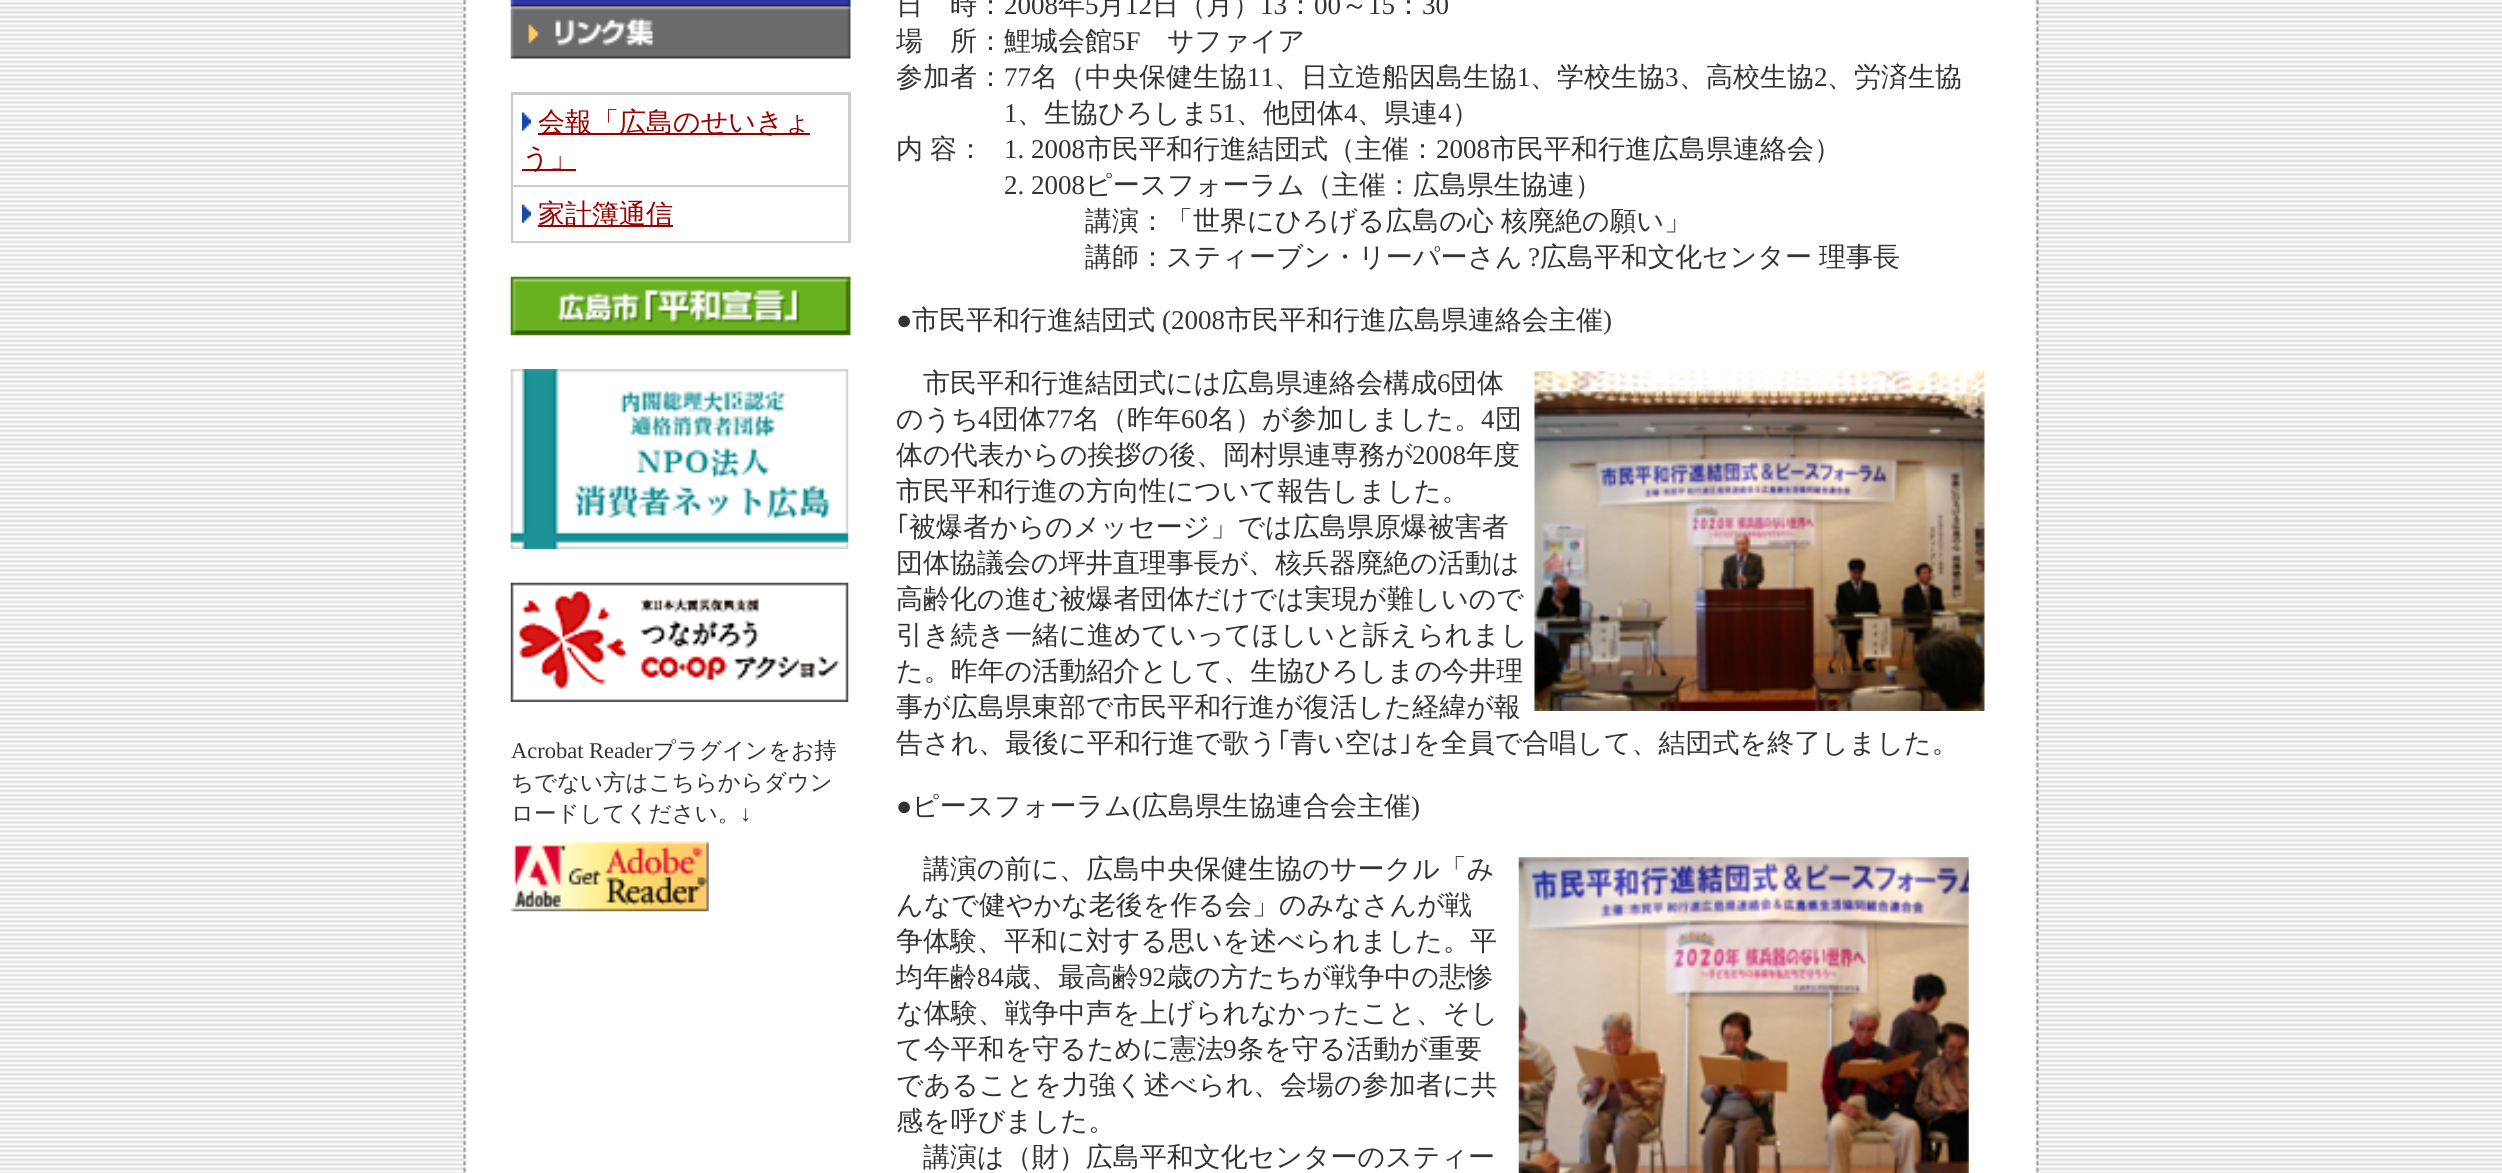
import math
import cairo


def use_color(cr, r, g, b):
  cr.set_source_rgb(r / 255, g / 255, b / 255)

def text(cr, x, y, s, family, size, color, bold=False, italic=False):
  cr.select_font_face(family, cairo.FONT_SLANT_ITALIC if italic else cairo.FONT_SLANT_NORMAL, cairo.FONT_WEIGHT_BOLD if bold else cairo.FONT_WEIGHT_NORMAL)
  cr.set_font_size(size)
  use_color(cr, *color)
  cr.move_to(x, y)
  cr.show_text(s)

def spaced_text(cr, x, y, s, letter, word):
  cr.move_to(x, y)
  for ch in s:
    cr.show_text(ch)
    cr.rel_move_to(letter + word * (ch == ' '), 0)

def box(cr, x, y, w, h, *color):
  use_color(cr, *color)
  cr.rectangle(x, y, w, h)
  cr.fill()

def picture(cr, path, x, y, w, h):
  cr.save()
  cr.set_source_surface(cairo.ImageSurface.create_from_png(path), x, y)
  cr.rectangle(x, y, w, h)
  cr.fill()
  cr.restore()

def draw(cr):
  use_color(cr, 255, 255, 255)
  cr.paint()
  picture(cr, "img_01.png", 0, 0, 2502, 1173)
  picture(cr, "img_02.png", 463, 0, 1576, 1173)
  picture(cr, "img_03.png", 510, 0, 341, 7)
  picture(cr, "img_04.png", 510, 6, 341, 53)
  box(cr, 511, 92, 340, 151, 204, 204, 204)
  box(cr, 513, 95, 335, 90, 255, 255, 255)
  picture(cr, "img_05.png", 522, 112, 9, 19)
  box(cr, 538, 133, 272, 2, 153, 0, 0)
  box(cr, 522, 169, 54, 2, 153, 0, 0)
  box(cr, 513, 187, 335, 54, 255, 255, 255)
  picture(cr, "img_06.png", 522, 204, 9, 19)
  box(cr, 538, 225, 135, 2, 153, 0, 0)
  picture(cr, "img_07.png", 510, 276, 341, 60)
  picture(cr, "img_08.png", 510, 369, 339, 180)
  picture(cr, "img_09.png", 510, 582, 339, 120)
  picture(cr, "img_10.png", 510, 841, 199, 71)
  picture(cr, "img_11.png", 1534, 371, 451, 340)
  picture(cr, "img_12.png", 1518, 857, 451, 316)
  text(cr, 538, 131, "会報「広島のせいきょ", "WenQuanYi Zen Hei Medium", 27, (153, 0, 0))
  text(cr, 522, 167, "う」", "WenQuanYi Zen Hei Medium", 27, (153, 0, 0))
  text(cr, 538, 223, "家計簿通信", "WenQuanYi Zen Hei Medium", 27, (153, 0, 0))
  text(cr, 511, 758, "Acrobat Reader", "Liberation Serif", 22.5, (51, 51, 51))
  text(cr, 653, 758, "プラグインをお持", "WenQuanYi Zen Hei Medium", 22.5, (51, 51, 51))
  text(cr, 511, 790, "ちでない方はこちらからダウン", "WenQuanYi Zen Hei Medium", 22.5, (51, 51, 51))
  text(cr, 511, 821, "ロードしてください。", "WenQuanYi Zen Hei Medium", 22.5, (51, 51, 51))
  text(cr, 740, 821, "↓", "Liberation Serif", 22.5, (51, 51, 51))
  text(cr, 896, 14, "日　時：", "WenQuanYi Zen Hei Medium", 27, (51, 51, 51))
  text(cr, 1004, 14, "2008", "Liberation Serif", 27, (51, 51, 51))
  text(cr, 1058, 14, "年", "WenQuanYi Zen Hei Medium", 27, (51, 51, 51))
  text(cr, 1085, 14, "5", "Liberation Serif", 27, (51, 51, 51))
  text(cr, 1098, 14, "月", "WenQuanYi Zen Hei Medium", 27, (51, 51, 51))
  text(cr, 1125, 14, "12", "Liberation Serif", 27, (51, 51, 51))
  text(cr, 1152, 14, "日（月）", "WenQuanYi Zen Hei Medium", 27, (51, 51, 51))
  text(cr, 1260, 14, "13", "Liberation Serif", 27, (51, 51, 51))
  text(cr, 1287, 14, "：", "WenQuanYi Zen Hei Medium", 27, (51, 51, 51))
  text(cr, 1314, 14, "00", "Liberation Serif", 27, (51, 51, 51))
  text(cr, 1341, 14, "～", "WenQuanYi Zen Hei Medium", 27, (51, 51, 51))
  text(cr, 1368, 14, "15", "Liberation Serif", 27, (51, 51, 51))
  text(cr, 1395, 14, "：", "WenQuanYi Zen Hei Medium", 27, (51, 51, 51))
  text(cr, 1422, 14, "30", "Liberation Serif", 27, (51, 51, 51))
  text(cr, 896, 50, "場　所：鯉城会館", "WenQuanYi Zen Hei Medium", 27, (51, 51, 51))
  text(cr, 1112, 50, "5F", "Liberation Serif", 27, (51, 51, 51))
  text(cr, 1167, 50, "サファイア", "WenQuanYi Zen Hei Medium", 27, (51, 51, 51))
  text(cr, 896, 86, "参加者：", "WenQuanYi Zen Hei Medium", 27, (51, 51, 51))
  text(cr, 1004, 86, "77", "Liberation Serif", 27, (51, 51, 51))
  text(cr, 1031, 86, "名（中央保健生協", "WenQuanYi Zen Hei Medium", 27, (51, 51, 51))
  text(cr, 1247, 86, "11", "Liberation Serif", 27, (51, 51, 51))
  text(cr, 1274, 86, "、日立造船因島生協", "WenQuanYi Zen Hei Medium", 27, (51, 51, 51))
  text(cr, 1517, 86, "1", "Liberation Serif", 27, (51, 51, 51))
  text(cr, 1530, 86, "、学校生協", "WenQuanYi Zen Hei Medium", 27, (51, 51, 51))
  text(cr, 1665, 86, "3", "Liberation Serif", 27, (51, 51, 51))
  text(cr, 1679, 86, "、高校生協", "WenQuanYi Zen Hei Medium", 27, (51, 51, 51))
  text(cr, 1814, 86, "2", "Liberation Serif", 27, (51, 51, 51))
  text(cr, 1827, 86, "、労済生協", "WenQuanYi Zen Hei Medium", 27, (51, 51, 51))
  text(cr, 1004, 122, "1", "Liberation Serif", 27, (51, 51, 51))
  text(cr, 1017, 122, "、生協ひろしま", "WenQuanYi Zen Hei Medium", 27, (51, 51, 51))
  text(cr, 1209, 122, "51", "Liberation Serif", 27, (51, 51, 51))
  text(cr, 1236, 122, "、他団体", "WenQuanYi Zen Hei Medium", 27, (51, 51, 51))
  text(cr, 1344, 122, "4", "Liberation Serif", 27, (51, 51, 51))
  text(cr, 1357, 122, "、県連", "WenQuanYi Zen Hei Medium", 27, (51, 51, 51))
  text(cr, 1438, 122, "4", "Liberation Serif", 27, (51, 51, 51))
  text(cr, 1452, 122, "）", "WenQuanYi Zen Hei Medium", 27, (51, 51, 51))
  spaced_text(cr, 896, 158, "内 容：", 0, -1)
  text(cr, 1004, 158, "1. 2008", "Liberation Serif", 27, (51, 51, 51))
  text(cr, 1085, 158, "市民平和行進結団式（主催：", "WenQuanYi Zen Hei Medium", 27, (51, 51, 51))
  text(cr, 1436, 158, "2008", "Liberation Serif", 27, (51, 51, 51))
  text(cr, 1490, 158, "市民平和行進広島県連絡会）", "WenQuanYi Zen Hei Medium", 27, (51, 51, 51))
  text(cr, 1004, 194, "2. 2008", "Liberation Serif", 27, (51, 51, 51))
  text(cr, 1085, 194, "ピースフォーラム（主催：広島県生協連）", "WenQuanYi Zen Hei Medium", 27, (51, 51, 51))
  spaced_text(cr, 1085, 230, "講演：「世界にひろげる広島の心 核廃絶の願い」", 0, -1)
  text(cr, 1085, 266, "講師：スティーブン・リーパーさん", "WenQuanYi Zen Hei Medium", 27, (51, 51, 51))
  text(cr, 1528, 266, "?", "Liberation Serif", 27, (51, 51, 51))
  cr.select_font_face("WenQuanYi Zen Hei Medium")
  spaced_text(cr, 1540, 266, "広島平和文化センター 理事長", 0, -1)
  text(cr, 896, 329, "●", "Liberation Serif", 27, (51, 51, 51))
  text(cr, 912, 329, "市民平和行進結団式", "WenQuanYi Zen Hei Medium", 27, (51, 51, 51))
  text(cr, 1162, 329, "(2008", "Liberation Serif", 27, (51, 51, 51))
  text(cr, 1225, 329, "市民平和行進広島県連絡会主催", "WenQuanYi Zen Hei Medium", 27, (51, 51, 51))
  text(cr, 1603, 329, ")", "Liberation Serif", 27, (51, 51, 51))
  text(cr, 923, 392, "市民平和行進結団式には広島県連絡会構成", "WenQuanYi Zen Hei Medium", 27, (51, 51, 51))
  text(cr, 1437, 392, "6", "Liberation Serif", 27, (51, 51, 51))
  text(cr, 1450, 392, "団体", "WenQuanYi Zen Hei Medium", 27, (51, 51, 51))
  text(cr, 896, 428, "のうち", "WenQuanYi Zen Hei Medium", 27, (51, 51, 51))
  text(cr, 978, 428, "4", "Liberation Serif", 27, (51, 51, 51))
  text(cr, 992, 428, "団体", "WenQuanYi Zen Hei Medium", 27, (51, 51, 51))
  text(cr, 1046, 428, "77", "Liberation Serif", 27, (51, 51, 51))
  text(cr, 1073, 428, "名（昨年", "WenQuanYi Zen Hei Medium", 27, (51, 51, 51))
  text(cr, 1181, 428, "60", "Liberation Serif", 27, (51, 51, 51))
  text(cr, 1208, 428, "名）が参加しました。", "WenQuanYi Zen Hei Medium", 27, (51, 51, 51))
  text(cr, 1481, 428, "4", "Liberation Serif", 27, (51, 51, 51))
  text(cr, 1495, 428, "団", "WenQuanYi Zen Hei Medium", 27, (51, 51, 51))
  text(cr, 896, 464, "体の代表からの挨拶の後、岡村県連専務が", "WenQuanYi Zen Hei Medium", 27, (51, 51, 51))
  text(cr, 1412, 464, "2008", "Liberation Serif", 27, (51, 51, 51))
  text(cr, 1466, 464, "年度", "WenQuanYi Zen Hei Medium", 27, (51, 51, 51))
  text(cr, 896, 500, "市民平和行進の方向性について報告しました。", "WenQuanYi Zen Hei Medium", 27, (51, 51, 51))
  text(cr, 896, 536, "｢", "IPAPGothic", 27, (51, 51, 51))
  text(cr, 909, 536, "被爆者からのメッセージ」では広島県原爆被害者", "WenQuanYi Zen Hei Medium", 27, (51, 51, 51))
  text(cr, 896, 572, "団体協議会の坪井直理事長が、核兵器廃絶の活動は", "WenQuanYi Zen Hei Medium", 27, (51, 51, 51))
  text(cr, 896, 608, "高齢化の進む被爆者団体だけでは実現が難しいので", "WenQuanYi Zen Hei Medium", 27, (51, 51, 51))
  text(cr, 896, 644, "引き続き一緒に進めていってほしいと訴えられまし", "WenQuanYi Zen Hei Medium", 27, (51, 51, 51))
  text(cr, 896, 680, "た。昨年の活動紹介として、生協ひろしまの今井理", "WenQuanYi Zen Hei Medium", 27, (51, 51, 51))
  text(cr, 896, 716, "事が広島県東部で市民平和行進が復活した経緯が報", "WenQuanYi Zen Hei Medium", 27, (51, 51, 51))
  text(cr, 896, 752, "告され、最後に平和行進で歌う", "WenQuanYi Zen Hei Medium", 27, (51, 51, 51))
  text(cr, 1277, 752, "｢", "IPAPGothic", 27, (51, 51, 51))
  text(cr, 1290, 752, "青い空は", "WenQuanYi Zen Hei Medium", 27, (51, 51, 51))
  text(cr, 1399, 752, "｣", "IPAPGothic", 27, (51, 51, 51))
  text(cr, 1413, 752, "を全員で合唱して、結団式を終了しました。", "WenQuanYi Zen Hei Medium", 27, (51, 51, 51))
  text(cr, 896, 815, "●", "Liberation Serif", 27, (51, 51, 51))
  text(cr, 912, 815, "ピースフォーラム", "WenQuanYi Zen Hei Medium", 27, (51, 51, 51))
  text(cr, 1132, 815, "(", "Liberation Serif", 27, (51, 51, 51))
  text(cr, 1141, 815, "広島県生協連合会主催", "WenQuanYi Zen Hei Medium", 27, (51, 51, 51))
  text(cr, 1411, 815, ")", "Liberation Serif", 27, (51, 51, 51))
  text(cr, 923, 878, "講演の前に、広島中央保健生協のサークル「み", "WenQuanYi Zen Hei Medium", 27, (51, 51, 51))
  text(cr, 896, 914, "んなで健やかな老後を作る会」のみなさんが戦", "WenQuanYi Zen Hei Medium", 27, (51, 51, 51))
  text(cr, 896, 950, "争体験、平和に対する思いを述べられました。平", "WenQuanYi Zen Hei Medium", 27, (51, 51, 51))
  text(cr, 896, 986, "均年齢", "WenQuanYi Zen Hei Medium", 27, (51, 51, 51))
  text(cr, 977, 986, "84", "Liberation Serif", 27, (51, 51, 51))
  text(cr, 1004, 986, "歳、最高齢", "WenQuanYi Zen Hei Medium", 27, (51, 51, 51))
  text(cr, 1139, 986, "92", "Liberation Serif", 27, (51, 51, 51))
  text(cr, 1166, 986, "歳の方たちが戦争中の悲惨", "WenQuanYi Zen Hei Medium", 27, (51, 51, 51))
  text(cr, 896, 1022, "な体験、戦争中声を上げられなかったこと、そし", "WenQuanYi Zen Hei Medium", 27, (51, 51, 51))
  text(cr, 896, 1058, "て今平和を守るために憲法", "WenQuanYi Zen Hei Medium", 27, (51, 51, 51))
  text(cr, 1223, 1058, "9", "Liberation Serif", 27, (51, 51, 51))
  text(cr, 1237, 1058, "条を守る活動が重要", "WenQuanYi Zen Hei Medium", 27, (51, 51, 51))
  text(cr, 896, 1094, "であることを力強く述べられ、会場の参加者に共", "WenQuanYi Zen Hei Medium", 27, (51, 51, 51))
  text(cr, 896, 1130, "感を呼びました。", "WenQuanYi Zen Hei Medium", 27, (51, 51, 51))
  text(cr, 923, 1166, "講演は（財）広島平和文化センターのスティー", "WenQuanYi Zen Hei Medium", 27, (51, 51, 51))


surface = cairo.ImageSurface(cairo.FORMAT_RGB24, 2502, 1173)
cr = cairo.Context(surface)
options = cairo.FontOptions()
options.set_hint_metrics(cairo.HINT_METRICS_OFF)
options.set_hint_style(cairo.HINT_STYLE_NONE)
cr.set_font_options(options)
cr.set_miter_limit(4)
draw(cr)
surface.write_to_png("out.png")
